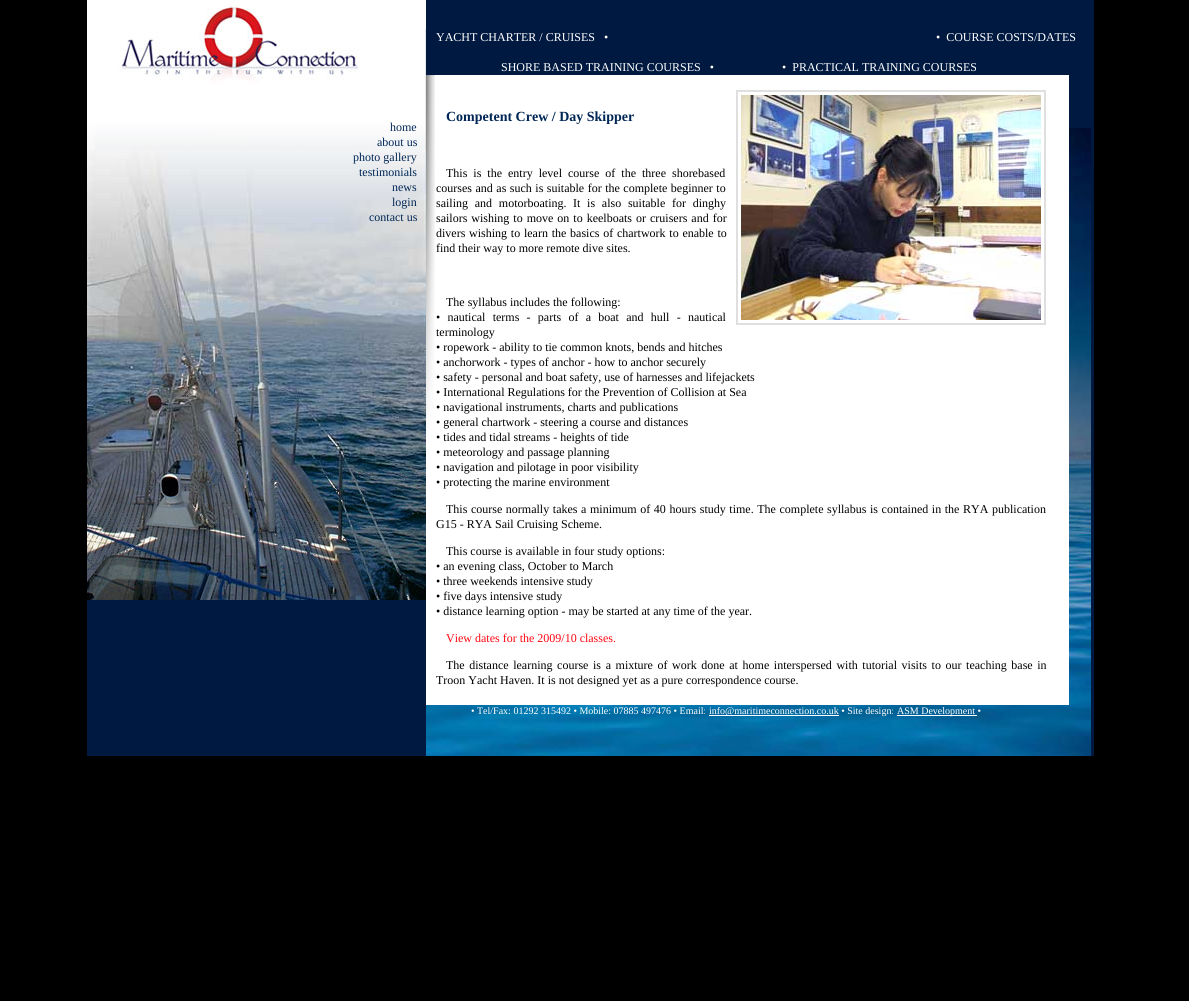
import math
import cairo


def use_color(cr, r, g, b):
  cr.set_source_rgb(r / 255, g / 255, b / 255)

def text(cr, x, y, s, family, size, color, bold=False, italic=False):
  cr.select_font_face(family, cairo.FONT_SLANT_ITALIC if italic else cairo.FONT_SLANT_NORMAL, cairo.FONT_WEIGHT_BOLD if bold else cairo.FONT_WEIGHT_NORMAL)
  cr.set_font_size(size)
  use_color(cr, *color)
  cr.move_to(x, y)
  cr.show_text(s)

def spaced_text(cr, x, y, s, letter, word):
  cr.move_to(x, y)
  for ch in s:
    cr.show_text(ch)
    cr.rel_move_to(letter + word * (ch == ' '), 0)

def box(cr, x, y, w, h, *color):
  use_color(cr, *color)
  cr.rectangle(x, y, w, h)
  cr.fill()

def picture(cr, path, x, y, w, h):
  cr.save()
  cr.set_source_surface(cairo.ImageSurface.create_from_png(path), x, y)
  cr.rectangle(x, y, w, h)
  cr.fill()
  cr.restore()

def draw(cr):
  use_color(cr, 0, 0, 0)
  cr.paint()
  box(cr, 87, 0, 1007, 756, 0, 25, 65)
  picture(cr, "img_01.png", 87, 0, 339, 153)
  picture(cr, "img_02.png", 87, 153, 339, 157)
  picture(cr, "img_03.png", 87, 310, 339, 162)
  picture(cr, "img_04.png", 87, 472, 339, 128)
  picture(cr, "img_05.png", 426, 128, 665, 628)
  box(cr, 426, 75, 643, 630, 255, 255, 255)
  picture(cr, "img_06.png", 426, 75, 9, 363)
  cr.rectangle(737, 91, 308, 233)
  use_color(cr, 223, 223, 223)
  cr.stroke()
  picture(cr, "img_07.png", 741, 95, 300, 225)
  box(cr, 709, 715, 130, 1, 255, 255, 255)
  box(cr, 897, 715, 80, 1, 255, 255, 255)
  text(cr, 390, 131, "home", "Liberation Serif", 12, (0, 38, 85))
  text(cr, 377, 146, "about us", "Liberation Serif", 12, (0, 38, 85))
  text(cr, 353, 161, "photo gallery", "Liberation Serif", 12, (0, 38, 85))
  text(cr, 359, 176, "testimonials", "Liberation Serif", 12, (0, 38, 85))
  text(cr, 392, 191, "news", "Liberation Serif", 12, (0, 38, 85))
  text(cr, 392, 206, "login", "Liberation Serif", 12, (0, 38, 85))
  text(cr, 369, 221, "contact us", "Liberation Serif", 12, (0, 38, 85))
  text(cr, 436, 41, "YACHT CHARTER / CRUISES   •", "Liberation Serif", 12, (255, 255, 255))
  text(cr, 936, 41, "•  COURSE COSTS/DATES", "Liberation Serif", 12, (255, 255, 255))
  text(cr, 501, 71, "SHORE BASED TRAINING COURSES   •", "Liberation Serif", 12, (255, 255, 255))
  text(cr, 782, 71, "•  PRACTICAL TRAINING COURSES", "Liberation Serif", 12, (255, 255, 255))
  text(cr, 446, 121, "Competent Crew / Day Skipper", "Liberation Serif", 14, (0, 38, 85), bold=True)
  cr.select_font_face("Liberation Serif")
  cr.set_font_size(12)
  use_color(cr, 0, 0, 0)
  spaced_text(cr, 446, 177, "This is the entry level course of the three shorebased", 0, 3)
  spaced_text(cr, 436, 192, "courses and as such is suitable for the complete beginner to", 0, 0.5)
  spaced_text(cr, 436, 207, "sailing and motorboating.", 0, 3.75)
  spaced_text(cr, 573, 207, "It is also suitable for dinghy", 0, 3.75)
  spaced_text(cr, 436, 222, "sailors wishing to move on to keelboats or cruisers and for", 0, 1)
  spaced_text(cr, 436, 237, "divers wishing to learn the basics of chartwork to enable to", 0, 0.75)
  text(cr, 436, 252, "find their way to more remote dive sites.", "Liberation Serif", 12, (0, 0, 0))
  text(cr, 446, 306, "The syllabus includes the following:", "Liberation Serif", 12, (0, 0, 0))
  spaced_text(cr, 436, 321, "• nautical terms - parts of a boat and hull - nautical", 0, 4.25)
  text(cr, 436, 336, "terminology", "Liberation Serif", 12, (0, 0, 0))
  text(cr, 436, 351, "• ropework - ability to tie common knots, bends and hitches", "Liberation Serif", 12, (0, 0, 0))
  text(cr, 436, 366, "• anchorwork - types of anchor - how to anchor securely", "Liberation Serif", 12, (0, 0, 0))
  text(cr, 436, 381, "• safety - personal and boat safety, use of harnesses and lifejackets", "Liberation Serif", 12, (0, 0, 0))
  text(cr, 436, 396, "• International Regulations for the Prevention of Collision at Sea", "Liberation Serif", 12, (0, 0, 0))
  text(cr, 436, 411, "• navigational instruments, charts and publications", "Liberation Serif", 12, (0, 0, 0))
  text(cr, 436, 426, "• general chartwork - steering a course and distances", "Liberation Serif", 12, (0, 0, 0))
  text(cr, 436, 441, "• tides and tidal streams - heights of tide", "Liberation Serif", 12, (0, 0, 0))
  text(cr, 436, 456, "• meteorology and passage planning", "Liberation Serif", 12, (0, 0, 0))
  text(cr, 436, 471, "• navigation and pilotage in poor visibility", "Liberation Serif", 12, (0, 0, 0))
  text(cr, 436, 486, "• protecting the marine environment", "Liberation Serif", 12, (0, 0, 0))
  spaced_text(cr, 446, 513, "This course normally takes a minimum of 40 hours study time. The complete", 0, 0.6)
  spaced_text(cr, 827, 513, "syllabus is contained in the RYA publication", 0, 0.6)
  text(cr, 436, 528, "G15 - RYA Sail Cruising Scheme.", "Liberation Serif", 12, (0, 0, 0))
  text(cr, 446, 555, "This course is available in four study options:", "Liberation Serif", 12, (0, 0, 0))
  text(cr, 436, 570, "• an evening class, October to March", "Liberation Serif", 12, (0, 0, 0))
  text(cr, 436, 585, "• three weekends intensive study", "Liberation Serif", 12, (0, 0, 0))
  text(cr, 436, 600, "• five days intensive study", "Liberation Serif", 12, (0, 0, 0))
  text(cr, 436, 615, "• distance learning option - may be started at any time of the year.", "Liberation Serif", 12, (0, 0, 0))
  text(cr, 446, 642, "View dates for the 2009/10 classes.", "Liberation Serif", 12, (255, 6, 16))
  use_color(cr, 0, 0, 0)
  spaced_text(cr, 446, 669, "The distance learning course is a mixture of work done at home interspersed with tutorial visits to our teaching base in", 0, 1.6)
  text(cr, 436, 684, "Troon Yacht Haven. It is not designed yet as a pure correspondence course.", "Liberation Serif", 12, (0, 0, 0))
  text(cr, 471, 714, "• Tel/Fax: 01292 315492 • Mobile: 07885 497476 • Email:", "Liberation Serif", 10, (255, 255, 255))
  text(cr, 709, 714, "info@maritimeconnection.co.uk • Site design:", "Liberation Serif", 10, (255, 255, 255))
  text(cr, 897, 714, "ASM Development •", "Liberation Serif", 10, (255, 255, 255))


surface = cairo.ImageSurface(cairo.FORMAT_RGB24, 1189, 1001)
cr = cairo.Context(surface)
options = cairo.FontOptions()
options.set_hint_metrics(cairo.HINT_METRICS_OFF)
options.set_hint_style(cairo.HINT_STYLE_NONE)
cr.set_font_options(options)
cr.set_miter_limit(4)
draw(cr)
surface.write_to_png("out.png")
